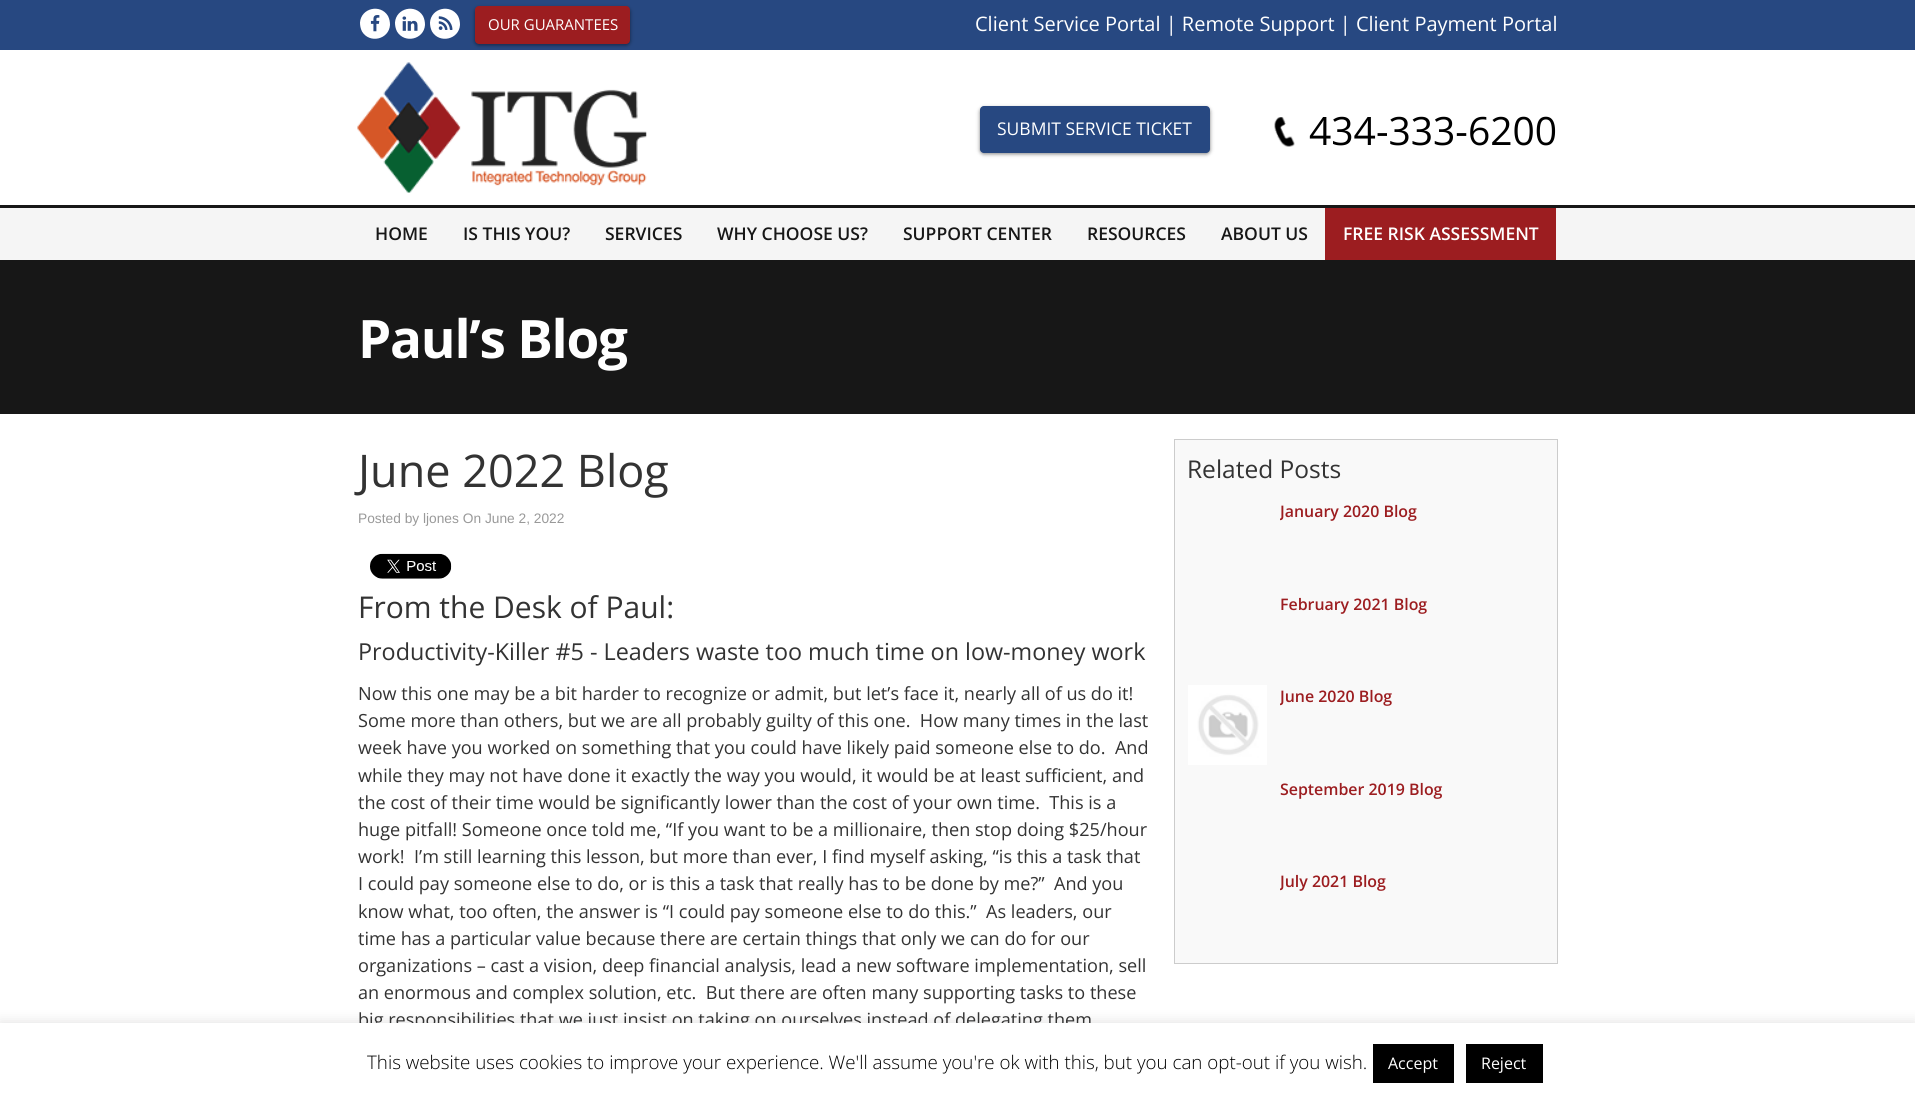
import math
import cairo


def use_color(cr, r, g, b):
  cr.set_source_rgb(r / 255, g / 255, b / 255)

def text(cr, x, y, s, family, size, color, bold=False, italic=False):
  cr.select_font_face(family, cairo.FONT_SLANT_ITALIC if italic else cairo.FONT_SLANT_NORMAL, cairo.FONT_WEIGHT_BOLD if bold else cairo.FONT_WEIGHT_NORMAL)
  cr.set_font_size(size)
  use_color(cr, *color)
  cr.move_to(x, y)
  cr.show_text(s)

def spaced_text(cr, x, y, s, letter, word):
  cr.move_to(x, y)
  for ch in s:
    cr.show_text(ch)
    cr.rel_move_to(letter + word * (ch == ' '), 0)

def box(cr, x, y, w, h, *color):
  use_color(cr, *color)
  cr.rectangle(x, y, w, h)
  cr.fill()

def round_rect(cr, x, y, w, h, r):
  cr.new_sub_path()
  for i, (u, v) in enumerate([(x + w - r, y + h - r), (x + r, y + h - r), (x + r, y + r), (x + w - r, y + r)]):
    cr.arc(u, v, r, i * math.pi / 2, (i + 1) * math.pi / 2)
  cr.close_path()

def shadow(cr, x, y, w, h, r, blur, alpha):
  cr.push_group_with_content(cairo.CONTENT_ALPHA)
  cr.set_operator(cairo.OPERATOR_SOURCE)
  for i in range(15, -16, -2):
    e = blur * i / 6
    if min(w, h) + 2 * e > 0:
      cr.set_source_rgba(0, 0, 0, alpha * math.erfc((i - 1) / 8.5) / 2)
      round_rect(cr, x - e, y - e, w + 2 * e, h + 2 * e, max(0, min(r + e + blur * .6, min(w, h) / 2 + e)))
      cr.fill()
  cr.mask(cr.pop_group())

def picture(cr, path, x, y, w, h):
  cr.save()
  cr.set_source_surface(cairo.ImageSurface.create_from_png(path), x, y)
  cr.rectangle(x, y, w, h)
  cr.fill()
  cr.restore()

def draw(cr):
  use_color(cr, 255, 255, 255)
  cr.paint()
  box(cr, 0, 0, 1915, 50, 39, 72, 129)
  use_color(cr, 255, 255, 255)
  cr.new_path()
  cr.move_to(388, 16)
  cr.curve_to(389.5, 19, 390, 22, 390, 25)
  cr.curve_to(389, 39.5, 369.5, 44, 362, 31.5)
  cr.curve_to(360.5, 28.5, 360, 25.5, 360, 22.5)
  cr.curve_to(361, 8, 380.5, 3.5, 388, 16)
  cr.close_path()
  cr.fill()
  picture(cr, "img_01.png", 370, 15, 10, 17)
  cr.new_path()
  cr.move_to(423, 16)
  cr.curve_to(424.5, 19, 425, 22, 425, 25)
  cr.curve_to(424, 39.5, 404.5, 44, 397, 31.5)
  cr.curve_to(395.5, 28.5, 395, 25.5, 395, 22.5)
  cr.curve_to(396, 8, 415.5, 3.5, 423, 16)
  cr.close_path()
  cr.fill()
  picture(cr, "img_02.png", 402, 16, 16, 15)
  cr.new_path()
  cr.move_to(458, 16)
  cr.curve_to(459.5, 19, 460, 22, 460, 25)
  cr.curve_to(459, 39.5, 439.5, 44, 432, 31.5)
  cr.curve_to(430.5, 28.5, 430, 25.5, 430, 22.5)
  cr.curve_to(431, 8, 450.5, 3.5, 458, 16)
  cr.close_path()
  cr.fill()
  picture(cr, "img_03.png", 438, 16, 15, 14)
  use_color(cr, 0, 0, 0)
  shadow(cr, 475, 8, 155, 37, 4, 2, 0.5)
  use_color(cr, 156, 29, 32)
  round_rect(cr, 475, 6, 155, 38, 4)
  cr.fill()
  picture(cr, "img_04.png", 357, 62, 290, 131)
  use_color(cr, 0, 0, 0)
  shadow(cr, 980, 108, 230, 46, 4, 2, 0.5)
  use_color(cr, 39, 72, 129)
  round_rect(cr, 980, 106, 230, 47, 4)
  cr.fill()
  picture(cr, "img_05.png", 1274, 117, 21, 30)
  box(cr, 0, 208, 1915, 52, 245, 245, 245)
  box(cr, 0, 205, 1915, 3, 23, 23, 23)
  box(cr, 0, 260, 1915, 154, 23, 23, 23)
  box(cr, 1325, 208, 231, 52, 156, 29, 32)
  picture(cr, "img_06.png", 370, 553, 82, 26)
  use_color(cr, 249, 249, 249)
  cr.rectangle(1174.5, 439.5, 383, 524)
  cr.fill_preserve()
  use_color(cr, 204, 204, 204)
  cr.set_line_width(1)
  cr.stroke()
  picture(cr, "img_07.png", 1188, 685, 79, 80)
  use_color(cr, 172, 171, 171)
  shadow(cr, 0, 1021, 1915, 82, 0, 6, 0.3)
  text(cr, 488, 30, "OUR GUARANTEES", "Open Sans", 15, (255, 255, 255))
  text(cr, 975, 31, "Client Service Portal | Remote Support | Client Payment Portal", "Open Sans", 20, (255, 255, 255))
  text(cr, 997, 135, "SUBMIT SERVICE TICKET", "Open Sans", 17.5, (255, 255, 255))
  text(cr, 1309, 145, "434-333-6200", "Open Sans", 39, (0, 0, 0))
  text(cr, 375, 240, "HOME", "Open Sans SemiBold", 17.5, (23, 23, 23))
  text(cr, 463, 240, "IS THIS YOU?", "Open Sans SemiBold", 17.5, (23, 23, 23))
  text(cr, 605, 240, "SERVICES", "Open Sans SemiBold", 17.5, (23, 23, 23))
  text(cr, 717, 240, "WHY CHOOSE US?", "Open Sans SemiBold", 17.5, (23, 23, 23))
  text(cr, 903, 240, "SUPPORT CENTER", "Open Sans SemiBold", 17.5, (23, 23, 23))
  text(cr, 1087, 240, "RESOURCES", "Open Sans SemiBold", 17.5, (23, 23, 23))
  text(cr, 1221, 240, "ABOUT US", "Open Sans SemiBold", 17.5, (23, 23, 23))
  text(cr, 1343, 240, "FREE RISK ASSESSMENT", "Open Sans SemiBold", 17.5, (255, 255, 255))
  cr.select_font_face("Open Sans", cairo.FONT_SLANT_NORMAL, cairo.FONT_WEIGHT_BOLD)
  cr.set_font_size(53)
  spaced_text(cr, 358, 358, "Paul’s Blog", -1.25, 0)
  text(cr, 358, 487, "June 2022 Blog", "Open Sans", 45, (51, 51, 51))
  text(cr, 358, 523, "Posted by ljones On June 2, 2022", "Liberation Sans", 13.75, (153, 153, 153))
  text(cr, 358, 618, "From the Desk of Paul:", "Open Sans", 30, (51, 51, 51))
  text(cr, 358, 660, "Productivity-Killer #5 - Leaders waste too much time on low-money work", "Open Sans", 23.35, (51, 51, 51))
  text(cr, 358, 700, "Now this one may be a bit harder to recognize or admit, but let’s face it, nearly all of us do it!", "Open Sans", 18.1, (51, 51, 51))
  text(cr, 358, 727, "Some more than others, but we are all probably guilty of this one.  How many times in the last", "Open Sans", 18.1, (51, 51, 51))
  text(cr, 358, 754, "week have you worked on something that you could have likely paid someone else to do.  And", "Open Sans", 18.1, (51, 51, 51))
  text(cr, 358, 782, "while they may not have done it exactly the way you would, it would be at least sufficient, and", "Open Sans", 18.1, (51, 51, 51))
  text(cr, 358, 809, "the cost of their time would be significantly lower than the cost of your own time.  This is a", "Open Sans", 18.1, (51, 51, 51))
  text(cr, 358, 836, "huge pitfall! Someone once told me, “If you want to be a millionaire, then stop doing $25/hour", "Open Sans", 18.1, (51, 51, 51))
  text(cr, 358, 863, "work!  I’m still learning this lesson, but more than ever, I find myself asking, “is this a task that", "Open Sans", 18.1, (51, 51, 51))
  text(cr, 358, 890, "I could pay someone else to do, or is this a task that really has to be done by me?”  And you", "Open Sans", 18.1, (51, 51, 51))
  text(cr, 358, 918, "know what, too often, the answer is “I could pay someone else to do this.”  As leaders, our", "Open Sans", 18.1, (51, 51, 51))
  text(cr, 358, 945, "time has a particular value because there are certain things that only we can do for our", "Open Sans", 18.1, (51, 51, 51))
  text(cr, 358, 972, "organizations – cast a vision, deep financial analysis, lead a new software implementation, sell", "Open Sans", 18.1, (51, 51, 51))
  text(cr, 358, 999, "an enormous and complex solution, etc.  But there are often many supporting tasks to these", "Open Sans", 18.1, (51, 51, 51))
  text(cr, 358, 1026, "big responsibilities that we just insist on taking on ourselves instead of delegating them", "Open Sans", 18.1, (51, 51, 51))
  text(cr, 1187, 478, "Related Posts", "Open Sans", 24.5, (51, 51, 51))
  cr.save()
  cr.rectangle(1280, 500, 264, 23)
  cr.clip()
  text(cr, 1280, 517, "January 2020 Blog", "Open Sans SemiBold", 15.9, (156, 29, 32))
  cr.restore()
  text(cr, 1280, 610, "February 2021 Blog", "Open Sans SemiBold", 15.9, (156, 29, 32))
  cr.save()
  cr.rectangle(1280, 685, 264, 23)
  cr.clip()
  text(cr, 1280, 702, "June 2020 Blog", "Open Sans SemiBold", 15.9, (156, 29, 32))
  cr.restore()
  text(cr, 1280, 795, "September 2019 Blog", "Open Sans SemiBold", 15.9, (156, 29, 32))
  cr.save()
  cr.rectangle(1280, 870, 264, 23)
  cr.clip()
  text(cr, 1280, 887, "July 2021 Blog", "Open Sans SemiBold", 15.9, (156, 29, 32))
  cr.restore()
  box(cr, 0, 1023, 1915, 80, 255, 255, 255)
  text(cr, 367, 1069, "This website uses cookies to improve your experience. We'll assume you're ok with this, but you can opt-out if you wish.", "Open Sans Light", 18.75, (0, 0, 0))
  box(cr, 1373, 1044, 81, 39, 0, 0, 0)
  text(cr, 1388, 1069, "Accept", "Open Sans", 16, (255, 255, 255))
  box(cr, 1466, 1044, 77, 39, 0, 0, 0)
  text(cr, 1481, 1069, "Reject", "Open Sans", 16, (255, 255, 255))


surface = cairo.ImageSurface(cairo.FORMAT_RGB24, 1915, 1103)
cr = cairo.Context(surface)
options = cairo.FontOptions()
options.set_hint_metrics(cairo.HINT_METRICS_OFF)
options.set_hint_style(cairo.HINT_STYLE_NONE)
cr.set_font_options(options)
cr.set_miter_limit(4)
draw(cr)
surface.write_to_png("out.png")
